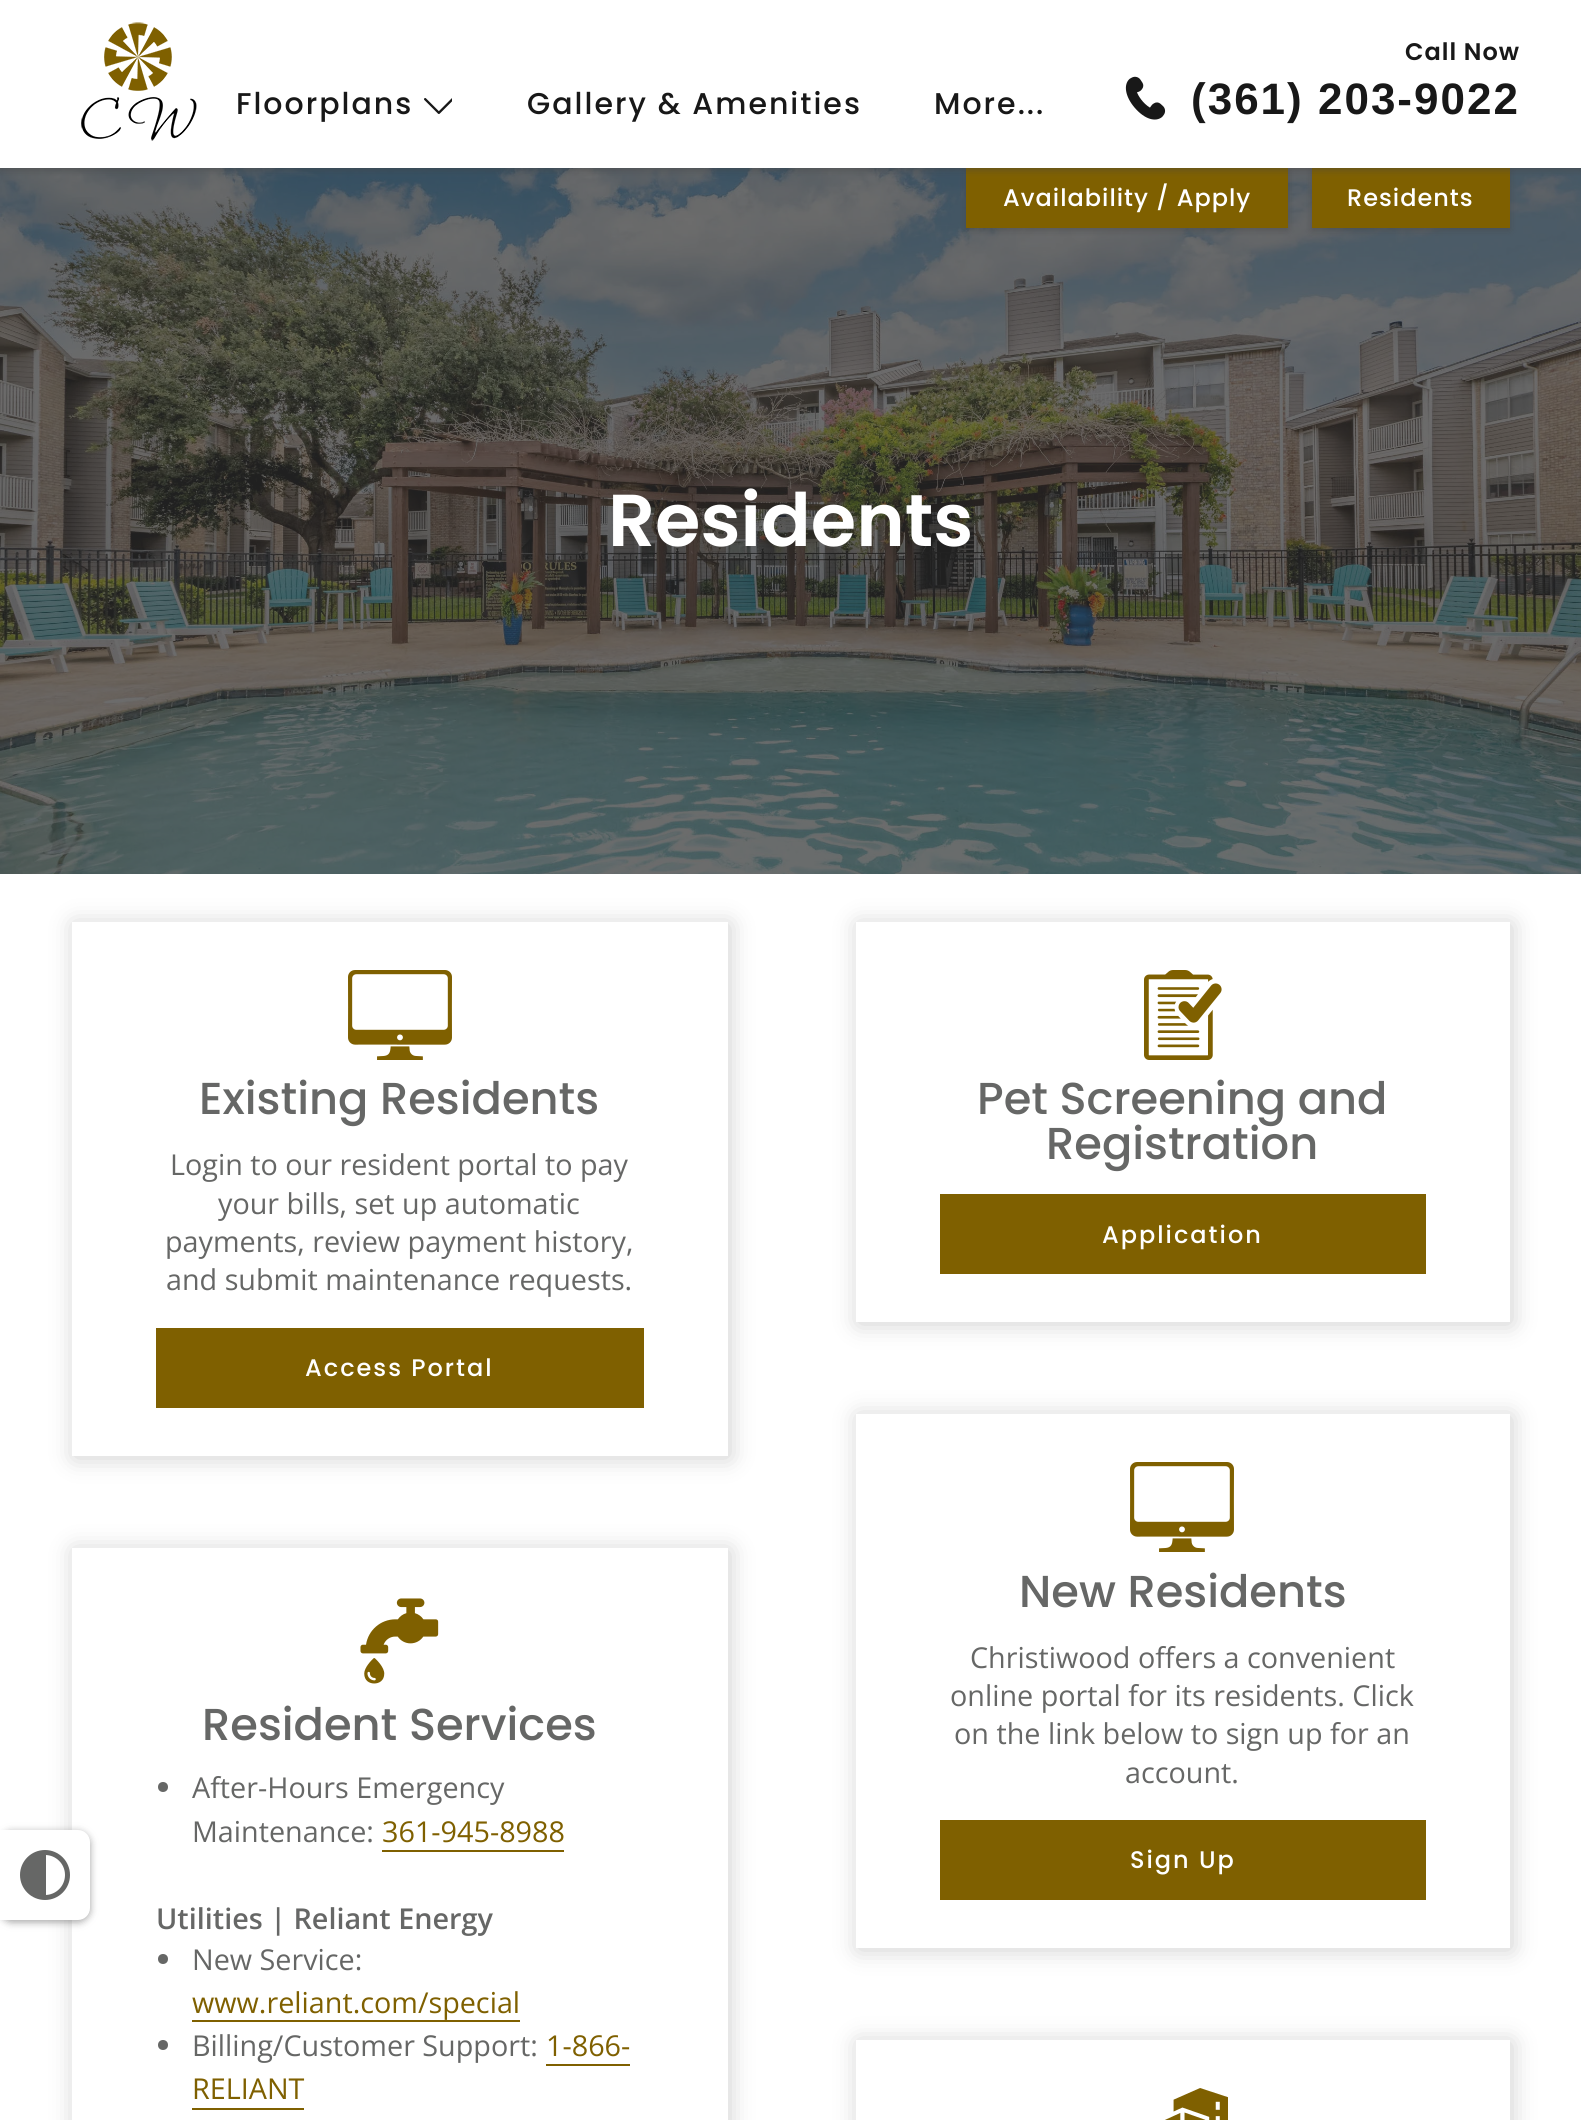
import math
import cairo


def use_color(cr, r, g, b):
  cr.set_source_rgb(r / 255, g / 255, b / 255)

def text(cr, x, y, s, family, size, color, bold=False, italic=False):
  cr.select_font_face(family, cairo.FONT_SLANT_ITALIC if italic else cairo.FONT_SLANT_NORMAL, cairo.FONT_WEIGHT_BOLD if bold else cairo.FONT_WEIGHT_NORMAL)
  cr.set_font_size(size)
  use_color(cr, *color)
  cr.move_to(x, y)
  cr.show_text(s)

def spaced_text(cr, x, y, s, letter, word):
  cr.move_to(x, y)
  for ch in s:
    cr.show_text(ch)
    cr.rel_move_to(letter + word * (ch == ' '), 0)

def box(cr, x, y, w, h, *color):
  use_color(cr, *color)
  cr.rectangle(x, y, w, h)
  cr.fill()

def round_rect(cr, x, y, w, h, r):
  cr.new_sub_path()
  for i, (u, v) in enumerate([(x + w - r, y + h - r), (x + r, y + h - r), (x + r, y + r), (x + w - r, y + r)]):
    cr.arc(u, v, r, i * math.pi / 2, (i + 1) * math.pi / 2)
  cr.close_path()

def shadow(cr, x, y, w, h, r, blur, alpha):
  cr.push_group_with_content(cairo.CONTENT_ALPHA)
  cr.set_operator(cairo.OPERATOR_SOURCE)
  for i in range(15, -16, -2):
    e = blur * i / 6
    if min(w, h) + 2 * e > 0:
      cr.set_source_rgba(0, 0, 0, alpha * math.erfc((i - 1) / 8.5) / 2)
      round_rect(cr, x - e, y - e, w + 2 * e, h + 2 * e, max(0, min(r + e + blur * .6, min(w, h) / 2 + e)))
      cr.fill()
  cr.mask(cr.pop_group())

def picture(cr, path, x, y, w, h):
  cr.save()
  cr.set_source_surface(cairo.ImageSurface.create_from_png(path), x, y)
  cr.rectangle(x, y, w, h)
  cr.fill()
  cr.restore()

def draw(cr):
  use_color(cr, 255, 255, 255)
  cr.paint()
  picture(cr, "img_04.png", 0, 168, 1581, 706)
  use_color(cr, 68, 68, 68)
  shadow(cr, 966, 170, 322, 60, 0, 4, 0.5)
  box(cr, 966, 168, 322, 60, 127, 96, 0)
  use_color(cr, 68, 68, 68)
  shadow(cr, 1312, 170, 198, 60, 0, 4, 0.5)
  box(cr, 1312, 168, 198, 60, 127, 96, 0)
  use_color(cr, 68, 68, 68)
  shadow(cr, 0, 2, 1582, 168, 0, 4, 0.5)
  box(cr, 0, 0, 1581, 168, 255, 255, 255)
  picture(cr, "img_01.png", 81, 22, 116, 119)
  picture(cr, "img_02.png", 424, 98, 28, 16)
  picture(cr, "img_03.png", 1125, 76, 41, 44)
  use_color(cr, 68, 68, 68)
  shadow(cr, 0, 1832, 90, 90, 12, 4, 0.5)
  cr.save()
  cr.set_fill_rule(cairo.FILL_RULE_EVEN_ODD)
  cr.new_path()
  cr.move_to(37, 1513)
  cr.line_to(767, 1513)
  cr.line_to(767, 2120)
  cr.line_to(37, 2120)
  cr.close_path()
  cr.move_to(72, 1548)
  cr.line_to(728, 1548)
  cr.line_to(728, 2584)
  cr.line_to(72, 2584)
  cr.close_path()
  cr.clip()
  use_color(cr, 53, 53, 53)
  shadow(cr, 74, 1550, 656, 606, 0, 12, 0.24)
  cr.restore()
  use_color(cr, 255, 255, 255)
  cr.new_path()
  cr.move_to(0, 1830)
  cr.line_to(78, 1830)
  cr.curve_to(84.5, 1830, 90, 1835.5, 90, 1842)
  cr.line_to(90, 1908)
  cr.curve_to(90, 1914.5, 84.5, 1920, 78, 1920)
  cr.line_to(0, 1920)
  cr.close_path()
  cr.fill()
  cr.arc(45, 1875, 22.5, 0, 2 * math.pi)
  use_color(cr, 102, 103, 102)
  cr.set_line_width(5)
  cr.stroke()
  cr.new_path()
  cr.move_to(46, 1854)
  cr.curve_to(17, 1854, 17, 1896, 46, 1896)
  cr.close_path()
  cr.fill()
  cr.save()
  cr.set_fill_rule(cairo.FILL_RULE_EVEN_ODD)
  cr.new_path()
  cr.move_to(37, 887)
  cr.line_to(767, 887)
  cr.line_to(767, 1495)
  cr.line_to(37, 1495)
  cr.close_path()
  cr.move_to(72, 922)
  cr.line_to(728, 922)
  cr.line_to(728, 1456)
  cr.line_to(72, 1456)
  cr.close_path()
  cr.clip()
  use_color(cr, 53, 53, 53)
  shadow(cr, 74, 924, 656, 534, 0, 12, 0.24)
  cr.restore()
  picture(cr, "img_05.png", 348, 970, 104, 90)
  box(cr, 156, 1328, 488, 80, 127, 96, 0)
  picture(cr, "img_06.png", 360, 1598, 79, 86)
  use_color(cr, 102, 103, 102)
  cr.arc(163, 1787, 5, 0, 2 * math.pi)
  cr.fill()
  box(cr, 382, 1850, 182, 2, 127, 96, 0)
  use_color(cr, 102, 103, 102)
  cr.arc(163, 1959, 5, 0, 2 * math.pi)
  cr.fill()
  box(cr, 192, 2020, 328, 2, 127, 96, 0)
  use_color(cr, 102, 103, 102)
  cr.arc(163, 2045, 5, 0, 2 * math.pi)
  cr.fill()
  box(cr, 546, 2064, 84, 2, 127, 96, 0)
  box(cr, 192, 2108, 112, 2, 127, 96, 0)
  cr.save()
  cr.set_fill_rule(cairo.FILL_RULE_EVEN_ODD)
  cr.new_path()
  cr.move_to(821, 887)
  cr.line_to(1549, 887)
  cr.line_to(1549, 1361)
  cr.line_to(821, 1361)
  cr.close_path()
  cr.move_to(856, 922)
  cr.line_to(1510, 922)
  cr.line_to(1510, 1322)
  cr.line_to(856, 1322)
  cr.close_path()
  cr.clip()
  use_color(cr, 53, 53, 53)
  shadow(cr, 858, 924, 654, 400, 0, 12, 0.24)
  cr.restore()
  picture(cr, "img_07.png", 1144, 970, 78, 90)
  box(cr, 940, 1194, 486, 80, 127, 96, 0)
  cr.save()
  cr.set_fill_rule(cairo.FILL_RULE_EVEN_ODD)
  cr.new_path()
  cr.move_to(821, 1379)
  cr.line_to(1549, 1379)
  cr.line_to(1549, 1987)
  cr.line_to(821, 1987)
  cr.close_path()
  cr.move_to(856, 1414)
  cr.line_to(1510, 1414)
  cr.line_to(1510, 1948)
  cr.line_to(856, 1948)
  cr.close_path()
  cr.clip()
  use_color(cr, 53, 53, 53)
  shadow(cr, 858, 1416, 654, 534, 0, 12, 0.24)
  cr.restore()
  picture(cr, "img_05.png", 1130, 1462, 104, 90)
  box(cr, 940, 1820, 486, 80, 127, 96, 0)
  cr.save()
  cr.set_fill_rule(cairo.FILL_RULE_EVEN_ODD)
  cr.new_path()
  cr.move_to(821, 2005)
  cr.line_to(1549, 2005)
  cr.line_to(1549, 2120)
  cr.line_to(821, 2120)
  cr.close_path()
  cr.move_to(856, 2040)
  cr.line_to(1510, 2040)
  cr.line_to(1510, 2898)
  cr.line_to(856, 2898)
  cr.close_path()
  cr.clip()
  use_color(cr, 53, 53, 53)
  shadow(cr, 858, 2042, 654, 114, 0, 12, 0.24)
  cr.restore()
  picture(cr, "img_08.png", 1165, 2088, 63, 32)
  cr.select_font_face("Poppins Medium")
  cr.set_font_size(30)
  use_color(cr, 24, 24, 24)
  spaced_text(cr, 236, 114, "Floorplans", 2, 0)
  spaced_text(cr, 527, 114, "Gallery & Amenities", 2, 0)
  spaced_text(cr, 934, 114, "More...", 2, 0)
  cr.select_font_face("Poppins SemiBold")
  cr.set_font_size(24)
  spaced_text(cr, 1405, 60, "Call Now", 1, 0)
  cr.select_font_face("Liberation Sans", cairo.FONT_SLANT_NORMAL, cairo.FONT_WEIGHT_BOLD)
  cr.set_font_size(44)
  spaced_text(cr, 1191, 114, "(361) 203-9022", 2, 0)
  cr.select_font_face("Poppins Medium")
  cr.set_font_size(24)
  use_color(cr, 255, 255, 255)
  spaced_text(cr, 1003, 206, "Availability / Apply", 1, 0)
  spaced_text(cr, 1347, 206, "Residents", 1, 0)
  text(cr, 608, 546, "Residents", "Poppins SemiBold", 73.5, (255, 255, 255))
  text(cr, 199, 1114, "Existing Residents", "Poppins Medium", 44.75, (102, 103, 102))
  text(cr, 170, 1175, "Login to our resident portal to pay", "Open Sans", 28.75, (102, 103, 102))
  text(cr, 218, 1214, "your bills, set up automatic", "Open Sans", 28.75, (102, 103, 102))
  text(cr, 165, 1252, "payments, review payment history,", "Open Sans", 28.75, (102, 103, 102))
  text(cr, 166, 1290, "and submit maintenance requests.", "Open Sans", 28.75, (102, 103, 102))
  cr.select_font_face("Poppins Medium")
  cr.set_font_size(24)
  use_color(cr, 255, 255, 255)
  spaced_text(cr, 305, 1376, "Access Portal", 2, 0)
  text(cr, 202, 1740, "Resident Services", "Poppins Medium", 44.75, (102, 103, 102))
  text(cr, 192, 1798, "After-Hours Emergency", "Open Sans", 28.75, (102, 103, 102))
  text(cr, 192, 1842, "Maintenance:", "Open Sans", 28.75, (102, 103, 102))
  text(cr, 382, 1842, "361-945-8988", "Open Sans", 28.75, (127, 96, 0))
  text(cr, 156, 1929, "Utilities | Reliant Energy", "Open Sans SemiBold", 28.75, (102, 103, 102))
  text(cr, 192, 1970, "New Service:", "Open Sans", 28.75, (102, 103, 102))
  text(cr, 192, 2013, "www.reliant.com/special", "Open Sans", 28.75, (127, 96, 0))
  text(cr, 192, 2056, "Billing/Customer Support:", "Open Sans", 28.75, (102, 103, 102))
  text(cr, 546, 2056, "1-866-", "Open Sans", 28.75, (127, 96, 0))
  text(cr, 192, 2099, "RELIANT", "Open Sans", 28.75, (127, 96, 0))
  text(cr, 977, 1114, "Pet Screening and", "Poppins Medium", 44.75, (102, 103, 102))
  text(cr, 1046, 1159, "Registration", "Poppins Medium", 44.75, (102, 103, 102))
  cr.set_font_size(24)
  use_color(cr, 255, 255, 255)
  spaced_text(cr, 1102, 1243, "Application", 2, 0)
  text(cr, 1019, 1607, "New Residents", "Poppins Medium", 44.75, (102, 103, 102))
  text(cr, 970, 1668, "Christiwood offers a convenient", "Open Sans", 28.75, (102, 103, 102))
  text(cr, 950, 1706, "online portal for its residents. Click", "Open Sans", 28.75, (102, 103, 102))
  text(cr, 954, 1744, "on the link below to sign up for an", "Open Sans", 28.75, (102, 103, 102))
  text(cr, 1125, 1783, "account.", "Open Sans", 28.75, (102, 103, 102))
  cr.select_font_face("Poppins Medium")
  cr.set_font_size(24)
  use_color(cr, 255, 255, 255)
  spaced_text(cr, 1130, 1868, "Sign Up", 2, 0)


surface = cairo.ImageSurface(cairo.FORMAT_RGB24, 1581, 2120)
cr = cairo.Context(surface)
options = cairo.FontOptions()
options.set_hint_metrics(cairo.HINT_METRICS_OFF)
options.set_hint_style(cairo.HINT_STYLE_NONE)
cr.set_font_options(options)
cr.set_miter_limit(4)
draw(cr)
surface.write_to_png("out.png")
